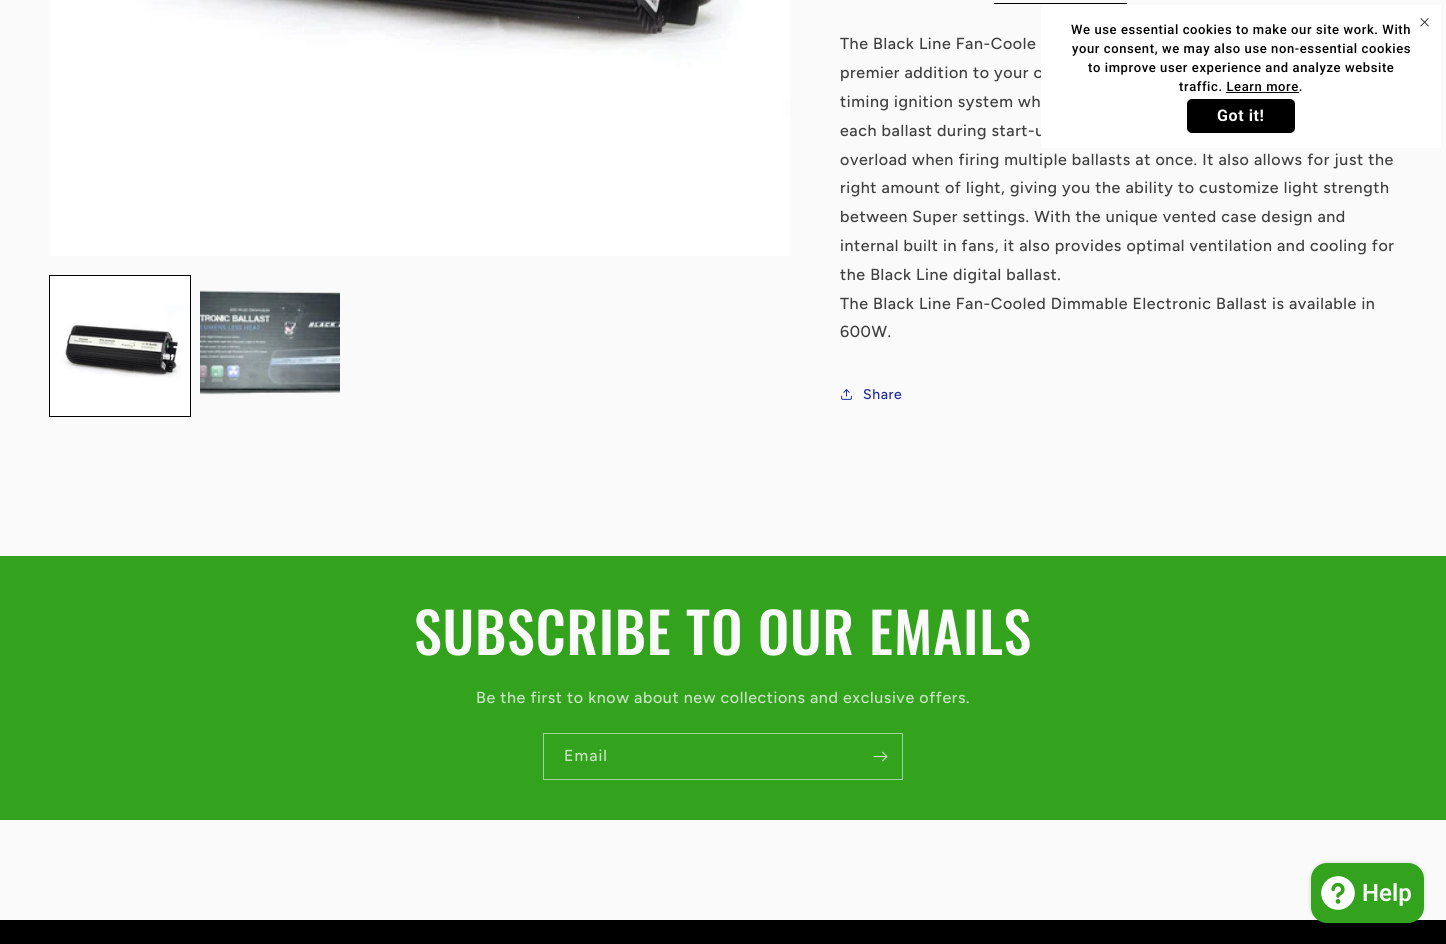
import math
import cairo


def use_color(cr, r, g, b):
  cr.set_source_rgb(r / 255, g / 255, b / 255)

def text(cr, x, y, s, family, size, color, bold=False, italic=False):
  cr.select_font_face(family, cairo.FONT_SLANT_ITALIC if italic else cairo.FONT_SLANT_NORMAL, cairo.FONT_WEIGHT_BOLD if bold else cairo.FONT_WEIGHT_NORMAL)
  cr.set_font_size(size)
  use_color(cr, *color)
  cr.move_to(x, y)
  cr.show_text(s)

def spaced_text(cr, x, y, s, letter, word):
  cr.move_to(x, y)
  for ch in s:
    cr.show_text(ch)
    cr.rel_move_to(letter + word * (ch == ' '), 0)

def box(cr, x, y, w, h, *color):
  use_color(cr, *color)
  cr.rectangle(x, y, w, h)
  cr.fill()

def round_rect(cr, x, y, w, h, r):
  cr.new_sub_path()
  for i, (u, v) in enumerate([(x + w - r, y + h - r), (x + r, y + h - r), (x + r, y + r), (x + w - r, y + r)]):
    cr.arc(u, v, r, i * math.pi / 2, (i + 1) * math.pi / 2)
  cr.close_path()

def shadow(cr, x, y, w, h, r, blur, alpha):
  cr.push_group_with_content(cairo.CONTENT_ALPHA)
  cr.set_operator(cairo.OPERATOR_SOURCE)
  for i in range(15, -16, -2):
    e = blur * i / 6
    if min(w, h) + 2 * e > 0:
      cr.set_source_rgba(0, 0, 0, alpha * math.erfc((i - 1) / 8.5) / 2)
      round_rect(cr, x - e, y - e, w + 2 * e, h + 2 * e, max(0, min(r + e + blur * .6, min(w, h) / 2 + e)))
      cr.fill()
  cr.mask(cr.pop_group())

def picture(cr, path, x, y, w, h):
  cr.save()
  cr.set_source_surface(cairo.ImageSurface.create_from_png(path), x, y)
  cr.rectangle(x, y, w, h)
  cr.fill()
  cr.restore()

def draw(cr):
  use_color(cr, 250, 250, 250)
  cr.paint()
  picture(cr, "img_02.png", 50, 0, 740, 256)
  cr.rectangle(49.5, 275.5, 141, 141)
  use_color(cr, 0, 0, 0)
  cr.set_line_width(1)
  cr.stroke()
  picture(cr, "img_03.png", 50, 276, 140, 140)
  picture(cr, "img_04.png", 200, 290, 140, 105)
  box(cr, 994, 3, 133, 1, 0, 0, 0)
  picture(cr, "img_05.png", 841, 389, 11, 11)
  box(cr, 0, 556, 1446, 264, 51, 163, 29)
  cr.rectangle(543.5, 733.5, 359, 46)
  use_color(cr, 160, 211, 151)
  cr.stroke()
  picture(cr, "img_06.png", 873, 751, 15, 11)
  box(cr, 0, 920, 1446, 24, 0, 0, 0)
  use_color(cr, 0, 0, 0)
  shadow(cr, 1311, 863, 113, 60, 16, 2.5, 0.15)
  use_color(cr, 51, 163, 29)
  round_rect(cr, 1311, 863, 113, 60, 16)
  cr.fill()
  picture(cr, "img_07.png", 1321, 876, 34, 34)
  cr.select_font_face("Figtree Medium")
  cr.set_font_size(16)
  use_color(cr, 63, 63, 63)
  spaced_text(cr, 840, 49, "The Black Line Fan-Coole", 0.6, 0)
  spaced_text(cr, 840, 78, "premier addition to your c", 0.6, 0)
  spaced_text(cr, 840, 107, "timing ignition system wh", 0.6, 0)
  spaced_text(cr, 840, 136, "each ballast during start-u", 0.6, 0)
  box(cr, 1041, 5, 400, 143, 255, 255, 255)
  picture(cr, "img_01.png", 1420, 18, 9, 9)
  use_color(cr, 0, 0, 0)
  round_rect(cr, 1187, 99, 108, 34, 5)
  cr.fill()
  cr.select_font_face("Roboto", cairo.FONT_SLANT_NORMAL, cairo.FONT_WEIGHT_BOLD)
  use_color(cr, 250, 250, 250)
  spaced_text(cr, 1217, 121, "Got it!", 0.6, 0)
  box(cr, 1226, 92, 73, 1, 0, 0, 0)
  cr.select_font_face("Roboto Medium")
  cr.set_font_size(13)
  spaced_text(cr, 1179, 91, "traffic. Learn more.", 0.6, 0)
  spaced_text(cr, 1088, 72, "to improve user experience and analyze website", 0.6, 0)
  spaced_text(cr, 1072, 53, "your consent, we may also use non-essential cookies", 0.6, 0)
  spaced_text(cr, 1071, 34, "We use essential cookies to make our site work. With", 0.6, 0)
  cr.select_font_face("Figtree Medium")
  cr.set_font_size(16)
  use_color(cr, 63, 63, 63)
  spaced_text(cr, 840, 165, "overload when firing multiple ballasts at once. It also allows for just the", 0.6, 0)
  spaced_text(cr, 840, 193, "right amount of light, giving you the ability to customize light strength", 0.6, 0)
  spaced_text(cr, 840, 222, "between Super settings. With the unique vented case design and", 0.6, 0)
  spaced_text(cr, 840, 251, "internal built in fans, it also provides optimal ventilation and cooling for", 0.6, 0)
  spaced_text(cr, 840, 280, "the Black Line digital ballast.", 0.6, 0)
  spaced_text(cr, 840, 309, "The Black Line Fan-Cooled Dimmable Electronic Ballast is available in", 0.6, 0)
  spaced_text(cr, 840, 337, "600W.", 0.6, 0)
  cr.set_font_size(14)
  use_color(cr, 29, 43, 163)
  spaced_text(cr, 863, 399, "Share", 0.6, 0)
  cr.select_font_face("Oswald Medium")
  cr.set_font_size(56)
  use_color(cr, 250, 250, 250)
  spaced_text(cr, 414, 655, "SUBSCRIBE TO OUR EMAILS", 0.8, 0)
  cr.select_font_face("Figtree Medium")
  cr.set_font_size(16)
  use_color(cr, 200, 228, 195)
  spaced_text(cr, 476, 703, "Be the first to know about new collections and exclusive offers.", 0.6, 0)
  spaced_text(cr, 564, 761, "Email", 1, 0)
  text(cr, 1362, 901, "Help", "Roboto SemiBold", 24, (250, 250, 250))


surface = cairo.ImageSurface(cairo.FORMAT_RGB24, 1446, 944)
cr = cairo.Context(surface)
options = cairo.FontOptions()
options.set_hint_metrics(cairo.HINT_METRICS_OFF)
options.set_hint_style(cairo.HINT_STYLE_NONE)
cr.set_font_options(options)
cr.set_miter_limit(4)
draw(cr)
surface.write_to_png("out.png")
